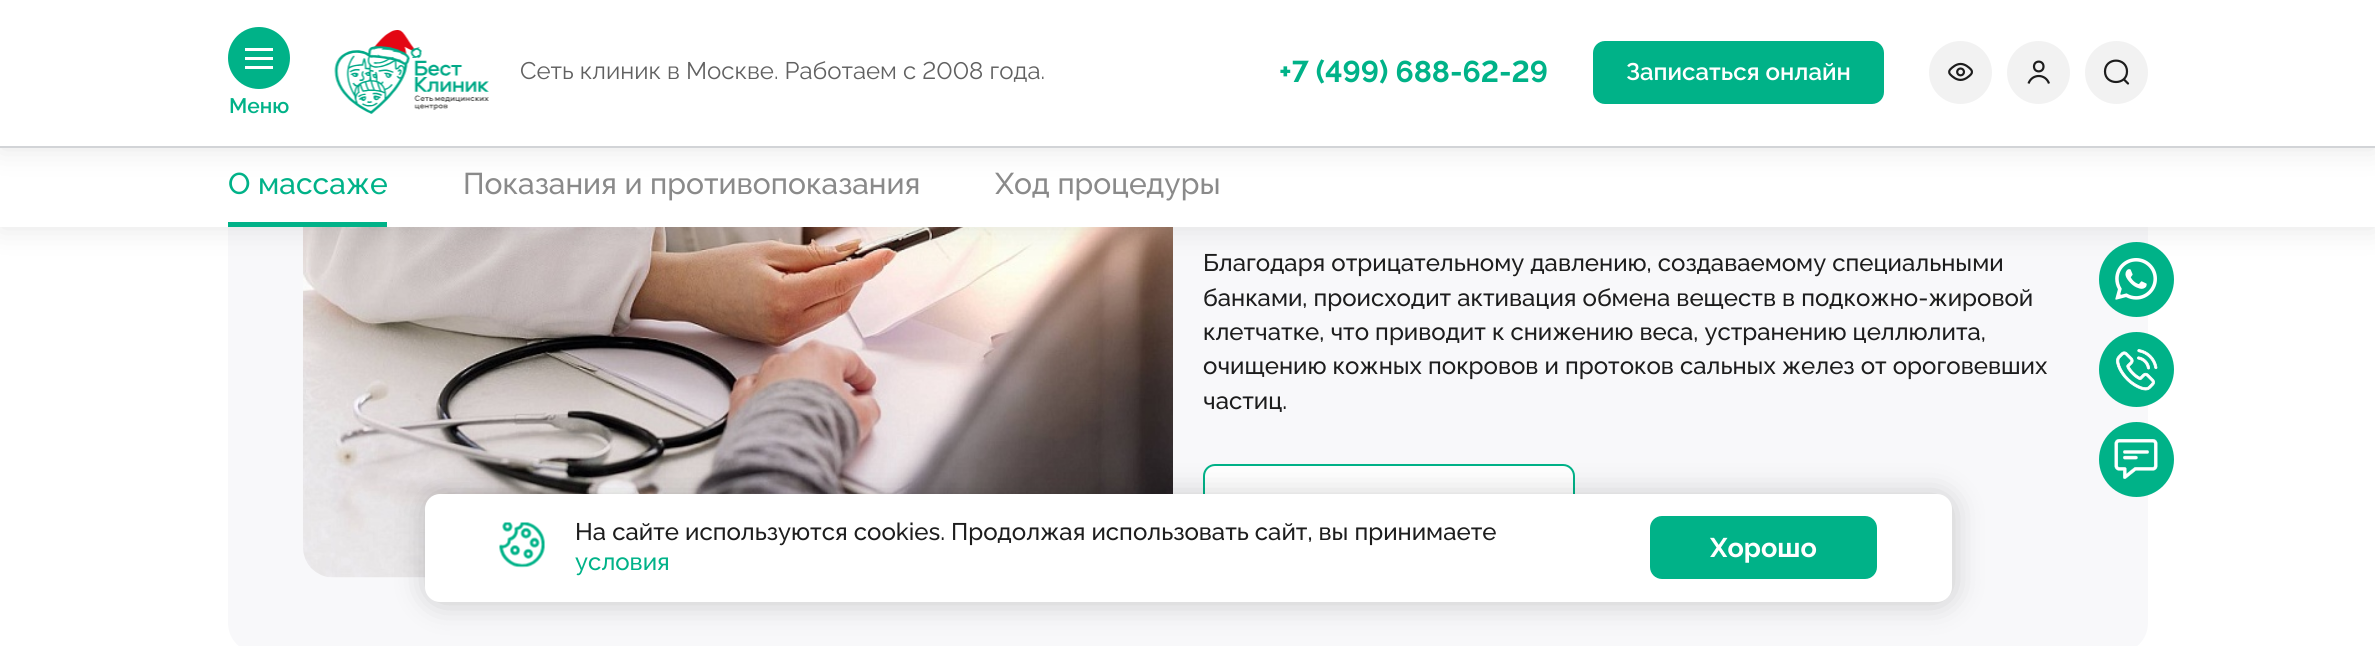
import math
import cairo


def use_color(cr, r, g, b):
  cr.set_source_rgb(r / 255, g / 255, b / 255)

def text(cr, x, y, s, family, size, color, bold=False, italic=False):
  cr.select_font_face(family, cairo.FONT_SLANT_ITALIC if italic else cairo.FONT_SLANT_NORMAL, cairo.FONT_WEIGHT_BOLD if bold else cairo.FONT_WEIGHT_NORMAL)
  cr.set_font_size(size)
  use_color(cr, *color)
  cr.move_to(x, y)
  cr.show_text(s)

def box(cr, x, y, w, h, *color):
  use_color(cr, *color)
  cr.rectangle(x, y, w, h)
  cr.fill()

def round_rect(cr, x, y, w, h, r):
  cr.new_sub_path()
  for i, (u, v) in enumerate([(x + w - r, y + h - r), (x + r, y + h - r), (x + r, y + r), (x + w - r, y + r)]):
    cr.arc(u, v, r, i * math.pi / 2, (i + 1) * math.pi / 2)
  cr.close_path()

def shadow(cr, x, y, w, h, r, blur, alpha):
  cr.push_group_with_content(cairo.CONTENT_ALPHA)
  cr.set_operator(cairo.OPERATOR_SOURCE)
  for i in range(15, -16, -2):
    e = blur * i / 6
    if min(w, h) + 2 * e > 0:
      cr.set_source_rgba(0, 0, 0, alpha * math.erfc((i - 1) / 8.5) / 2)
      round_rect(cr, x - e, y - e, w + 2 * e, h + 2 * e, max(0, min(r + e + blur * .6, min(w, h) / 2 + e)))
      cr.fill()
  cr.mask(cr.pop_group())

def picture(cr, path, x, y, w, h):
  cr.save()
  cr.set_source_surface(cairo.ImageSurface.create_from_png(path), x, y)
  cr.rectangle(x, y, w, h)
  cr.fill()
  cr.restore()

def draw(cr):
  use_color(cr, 255, 255, 255)
  cr.paint()
  use_color(cr, 248, 248, 250)
  round_rect(cr, 228, -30, 1920, 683, 30)
  cr.fill()
  picture(cr, "img_03.png", 303, 227, 870, 351)
  use_color(cr, 85, 85, 85)
  shadow(cr, 0, 144, 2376, 84, 0, 15, 0.15)
  box(cr, 0, 148, 2375, 79, 255, 255, 255)
  use_color(cr, 85, 85, 85)
  shadow(cr, 0, 2, 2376, 147, 0, 15, 0.15)
  box(cr, 0, 0, 2375, 146, 255, 255, 255)
  box(cr, 0, 146, 2375, 2, 210, 212, 215)
  picture(cr, "img_01.png", 334, 30, 155, 84)
  use_color(cr, 0, 178, 136)
  round_rect(cr, 1593, 41, 291, 63, 12)
  cr.fill()
  use_color(cr, 242, 242, 242)
  cr.arc(1960.5, 72.5, 31.5, 0, 2 * math.pi)
  cr.fill()
  picture(cr, "img_02.png", 1948, 62, 25, 19)
  cr.arc(2038.5, 72.5, 31.5, 0, 2 * math.pi)
  cr.fill()
  cr.new_path()
  cr.move_to(2049, 83.5)
  cr.curve_to(2045.5, 73.5, 2032, 73.5, 2028.5, 83.5)
  cr.move_to(2043.5, 66.5)
  cr.curve_to(2043.5, 73, 2034, 73, 2034, 66.5)
  cr.curve_to(2034, 60, 2043.5, 60, 2043.5, 66.5)
  cr.close_path()
  use_color(cr, 29, 29, 29)
  cr.set_line_width(2.2)
  cr.set_line_join(cairo.LINE_JOIN_ROUND)
  cr.stroke()
  use_color(cr, 242, 242, 242)
  cr.arc(2116.5, 72.5, 31.5, 0, 2 * math.pi)
  cr.fill()
  cr.new_path()
  cr.move_to(2124, 79.5)
  cr.line_to(2128, 83.5)
  cr.move_to(2127, 71.5)
  cr.curve_to(2127, 57, 2105, 57, 2105, 71.5)
  cr.curve_to(2105, 85.5, 2127, 85.5, 2127, 71.5)
  cr.close_path()
  use_color(cr, 29, 29, 29)
  cr.set_line_cap(cairo.LINE_CAP_ROUND)
  cr.stroke()
  use_color(cr, 0, 178, 136)
  cr.arc(259, 58, 31, 0, 2 * math.pi)
  cr.fill()
  box(cr, 245, 48, 28, 3, 255, 255, 255)
  box(cr, 245, 57, 28, 3, 255, 255, 255)
  box(cr, 245, 66, 28, 3, 255, 255, 255)
  box(cr, 228, 222, 159, 5, 0, 178, 136)
  use_color(cr, 255, 255, 255)
  round_rect(cr, 1204, 465, 370, 82, 11)
  cr.fill_preserve()
  use_color(cr, 0, 178, 136)
  cr.set_line_width(2)
  cr.set_line_cap(cairo.LINE_CAP_BUTT)
  cr.set_line_join(cairo.LINE_JOIN_MITER)
  cr.stroke()
  cr.arc(2136.5, 279.5, 37.5, 0, 2 * math.pi)
  cr.fill()
  picture(cr, "img_04.png", 2115, 258, 42, 42)
  cr.arc(2136.5, 369.5, 37.5, 0, 2 * math.pi)
  cr.fill()
  picture(cr, "img_05.png", 2116, 349, 42, 42)
  cr.arc(2136.5, 459.5, 37.5, 0, 2 * math.pi)
  cr.fill()
  picture(cr, "img_06.png", 2114, 439, 44, 40)
  use_color(cr, 0, 0, 0)
  shadow(cr, 426, 495, 1527, 108, 15, 15, 0.2)
  use_color(cr, 255, 255, 255)
  round_rect(cr, 425, 494, 1527, 108, 15)
  cr.fill()
  picture(cr, "img_07.png", 499, 522, 46, 46)
  use_color(cr, 0, 178, 136)
  round_rect(cr, 1650, 516, 227, 63, 12)
  cr.fill()
  text(cr, 520, 79, "Сеть клиник в Москве. Работаем с 2008 года.", "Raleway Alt", 24, (97, 97, 97))
  text(cr, 1279, 82, "+7 (499) 688-62-29", "Raleway Alt", 30, (0, 178, 136), bold=True)
  text(cr, 1626, 80, "Записаться онлайн", "Raleway SemiBold", 24, (255, 255, 255))
  text(cr, 229, 113, "Меню", "Raleway SemiBold", 21, (0, 178, 136))
  text(cr, 228, 194, "О массаже", "Raleway Medium", 30, (0, 178, 136))
  text(cr, 463, 194, "Показания и противопоказания", "Raleway Medium", 30, (138, 138, 138))
  text(cr, 995, 194, "Ход процедуры", "Raleway Medium", 30, (138, 138, 138))
  text(cr, 1203, 271, "Благодаря отрицательному давлению, создаваемому специальными", "Raleway Medium", 24, (29, 29, 29))
  text(cr, 1203, 306, "банками, происходит активация обмена веществ в подкожно-жировой", "Raleway Medium", 24, (29, 29, 29))
  text(cr, 1203, 340, "клетчатке, что приводит к снижению веса, устранению целлюлита,", "Raleway Medium", 24, (29, 29, 29))
  text(cr, 1203, 374, "очищению кожных покровов и протоков сальных желез от ороговевших", "Raleway Medium", 24, (29, 29, 29))
  text(cr, 1203, 409, "частиц.", "Raleway Medium", 24, (29, 29, 29))
  text(cr, 575, 540, "На сайте используются cookies. Продолжая использовать сайт, вы принимаете", "Raleway Medium", 24, (29, 29, 29))
  text(cr, 575, 570, "условия", "Raleway Medium", 24, (0, 178, 136))
  text(cr, 1710, 557, "Хорошо", "Raleway", 27, (255, 255, 255), bold=True)


surface = cairo.ImageSurface(cairo.FORMAT_RGB24, 2375, 646)
cr = cairo.Context(surface)
options = cairo.FontOptions()
options.set_hint_metrics(cairo.HINT_METRICS_OFF)
options.set_hint_style(cairo.HINT_STYLE_NONE)
cr.set_font_options(options)
cr.set_miter_limit(4)
draw(cr)
surface.write_to_png("out.png")
